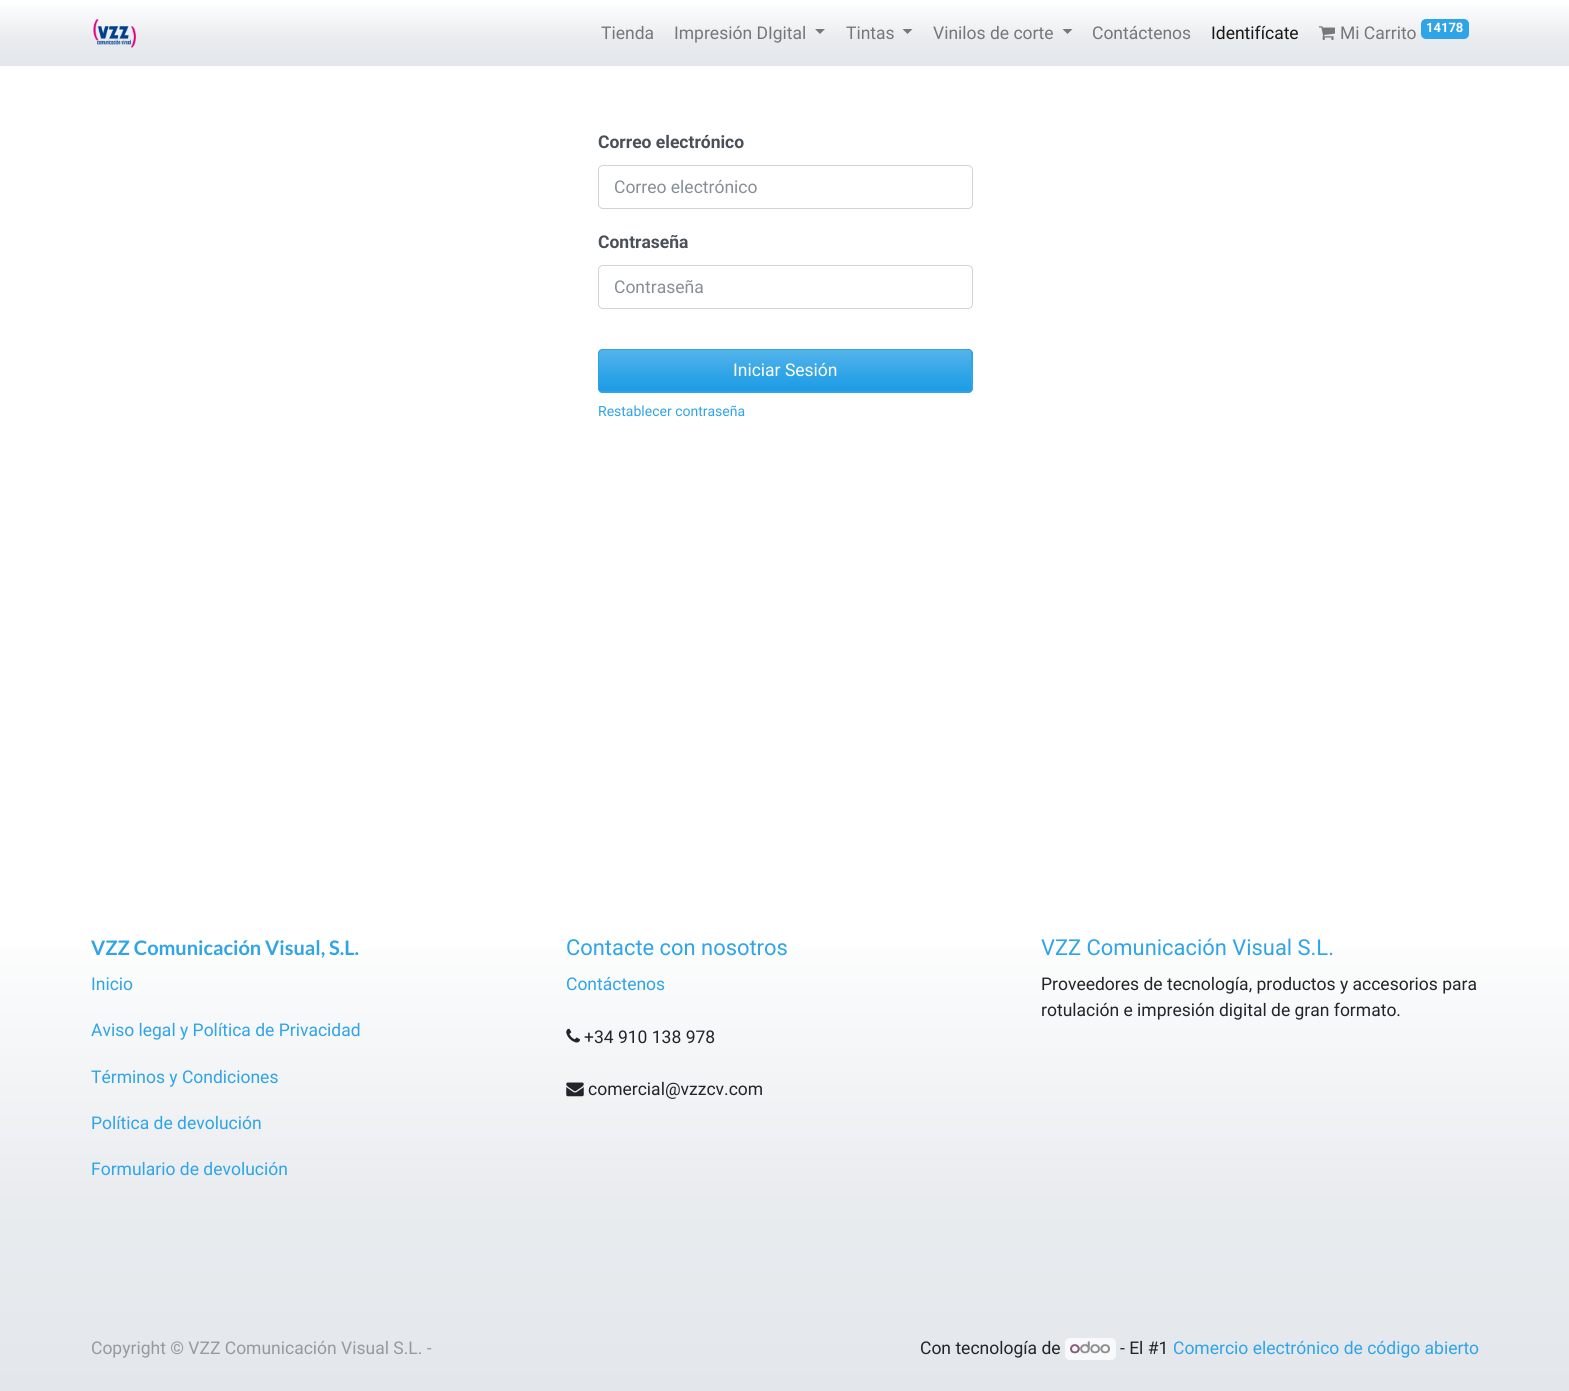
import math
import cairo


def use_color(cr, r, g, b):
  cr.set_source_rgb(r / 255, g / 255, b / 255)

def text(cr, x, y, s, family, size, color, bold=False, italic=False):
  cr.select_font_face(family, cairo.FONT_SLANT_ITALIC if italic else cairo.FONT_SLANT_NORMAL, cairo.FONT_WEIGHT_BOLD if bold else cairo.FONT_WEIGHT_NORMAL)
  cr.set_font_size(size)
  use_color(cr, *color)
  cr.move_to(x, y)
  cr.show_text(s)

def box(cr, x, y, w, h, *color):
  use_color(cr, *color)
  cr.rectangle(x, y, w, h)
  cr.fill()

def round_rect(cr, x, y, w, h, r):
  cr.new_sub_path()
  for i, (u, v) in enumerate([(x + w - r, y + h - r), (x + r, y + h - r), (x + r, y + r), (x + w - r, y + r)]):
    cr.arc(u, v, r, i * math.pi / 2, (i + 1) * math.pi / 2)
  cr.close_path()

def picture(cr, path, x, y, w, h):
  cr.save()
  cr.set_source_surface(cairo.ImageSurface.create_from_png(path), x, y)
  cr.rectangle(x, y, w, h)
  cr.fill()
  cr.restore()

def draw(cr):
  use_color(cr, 255, 255, 255)
  cr.paint()
  gradient = cairo.LinearGradient(785, 0, 785, 66)
  gradient.add_color_stop_rgba(0, 1, 1, 1, 1)
  gradient.add_color_stop_rgba(0.6, 0.914, 0.925, 0.937, 1)
  gradient.add_color_stop_rgba(1, 0.89, 0.906, 0.922, 1)
  cr.set_source(gradient)
  cr.rectangle(0, 5, 1569, 61)
  cr.fill()
  picture(cr, "img_01.png", 93, 19, 43, 29)
  cr.set_source_rgba(0, 0, 0, 0.5)
  cr.new_path()
  cr.move_to(815, 29)
  cr.line_to(825, 29)
  cr.line_to(820, 34)
  cr.close_path()
  cr.fill()
  cr.new_path()
  cr.move_to(902.5, 29)
  cr.line_to(912.5, 29)
  cr.line_to(907.5, 34)
  cr.close_path()
  cr.fill()
  cr.new_path()
  cr.move_to(1062.5, 29)
  cr.line_to(1072.5, 29)
  cr.line_to(1067.5, 34)
  cr.close_path()
  cr.fill()
  picture(cr, "img_02.png", 1318, 26, 17, 14)
  use_color(cr, 47, 164, 231)
  round_rect(cr, 1421, 19, 48, 20, 5)
  cr.fill()
  round_rect(cr, 598.5, 165.5, 374, 43, 4.5)
  use_color(cr, 206, 212, 218)
  cr.set_line_width(1)
  cr.stroke()
  round_rect(cr, 598.5, 265.5, 374, 43, 4.5)
  cr.stroke()
  use_color(cr, 47, 164, 231)
  round_rect(cr, 598, 349, 375, 44, 5)
  cr.fill()
  gradient = cairo.LinearGradient(785, 350, 785, 391)
  gradient.add_color_stop_rgba(0, 0.329, 0.706, 0.922, 1)
  gradient.add_color_stop_rgba(0.6, 0.184, 0.643, 0.906, 1)
  gradient.add_color_stop_rgba(1, 0.114, 0.612, 0.898, 1)
  cr.set_source(gradient)
  cr.rectangle(599, 350, 372, 41)
  cr.fill()
  round_rect(cr, 598.5, 349.5, 374, 43, 4.5)
  use_color(cr, 47, 164, 231)
  cr.stroke()
  gradient = cairo.LinearGradient(785, 914, 785, 1391)
  gradient.add_color_stop_rgba(0, 1, 1, 1, 1)
  gradient.add_color_stop_rgba(0.6, 0.914, 0.925, 0.937, 1)
  gradient.add_color_stop_rgba(1, 0.89, 0.906, 0.922, 1)
  cr.set_source(gradient)
  cr.rectangle(0, 947, 1569, 444)
  cr.fill()
  box(cr, 91, 947, 268, 12, 255, 255, 255)
  picture(cr, "img_03.png", 566, 1028, 14, 15)
  picture(cr, "img_04.png", 566, 1082, 18, 15)
  use_color(cr, 248, 249, 250)
  round_rect(cr, 1065, 1338, 51, 22, 5)
  cr.fill()
  picture(cr, "img_05.png", 1070, 1341, 40, 13)
  text(cr, 601, 39, "Tienda", "Roboto", 17.5, (118, 119, 121))
  text(cr, 674, 39, "Impresión DIgital", "Roboto", 17.5, (118, 119, 121))
  text(cr, 846, 39, "Tintas", "Roboto", 17.5, (118, 119, 121))
  text(cr, 933, 39, "Vinilos de corte", "Roboto", 17.5, (118, 119, 121))
  text(cr, 1092, 39, "Contáctenos", "Roboto", 17.5, (118, 119, 121))
  text(cr, 1211, 39, "Identifícate", "Roboto", 17.5, (24, 24, 24))
  text(cr, 1340, 39, "Mi Carrito", "Roboto", 17.5, (118, 119, 121))
  text(cr, 1426, 32, "14178", "Roboto", 13, (255, 255, 255), bold=True)
  text(cr, 598, 148, "Correo electrónico", "Roboto", 17.5, (73, 80, 87), bold=True)
  text(cr, 614, 193, "Correo electrónico", "Roboto", 17.5, (134, 142, 150))
  text(cr, 598, 248, "Contraseña", "Roboto", 17.5, (73, 80, 87), bold=True)
  text(cr, 614, 293, "Contraseña", "Roboto", 17.5, (134, 142, 150))
  text(cr, 733, 376, "Iniciar Sesión", "Roboto", 17.5, (255, 255, 255))
  text(cr, 598, 416, "Restablecer contraseña", "Roboto", 14, (47, 164, 231))
  text(cr, 91, 955, "VZZ Comunicación Visual, S.L.", "Lato", 20, (47, 164, 231), bold=True)
  text(cr, 91, 990, "Inicio", "Roboto", 17.5, (47, 164, 231))
  text(cr, 91, 1036, "Aviso legal y Política de Privacidad", "Roboto", 17.5, (47, 164, 231))
  text(cr, 91, 1083, "Términos y Condiciones", "Roboto", 17.5, (47, 164, 231))
  text(cr, 91, 1129, "Política de devolución", "Roboto", 17.5, (47, 164, 231))
  text(cr, 91, 1175, "Formulario de devolución", "Roboto", 17.5, (47, 164, 231))
  text(cr, 566, 955, "Contacte con nosotros", "Roboto", 21.9, (47, 164, 231))
  text(cr, 566, 990, "Contáctenos", "Roboto", 17.5, (47, 164, 231))
  text(cr, 584, 1043, "+34 910 138 978", "Roboto", 17.5, (33, 37, 41))
  text(cr, 588, 1095, "comercial@vzzcv.com", "Roboto", 17.5, (33, 37, 41))
  text(cr, 1041, 955, "VZZ Comunicación Visual S.L.", "Roboto", 21.9, (47, 164, 231))
  text(cr, 1041, 990, "Proveedores de tecnología, productos y accesorios para", "Roboto", 17.5, (33, 37, 41))
  text(cr, 1041, 1016, "rotulación e impresión digital de gran formato.", "Roboto", 17.5, (33, 37, 41))
  text(cr, 91, 1354, "Copyright © VZZ Comunicación Visual S.L. -", "Roboto", 17.5, (150, 154, 158))
  text(cr, 920, 1354, "Con tecnología de", "Roboto", 17.5, (33, 37, 41))
  text(cr, 1120, 1354, "- El #1", "Roboto", 17.5, (33, 37, 41))
  text(cr, 1173, 1354, "Comercio electrónico de código abierto", "Roboto", 17.5, (47, 164, 231))


surface = cairo.ImageSurface(cairo.FORMAT_RGB24, 1569, 1391)
cr = cairo.Context(surface)
options = cairo.FontOptions()
options.set_hint_metrics(cairo.HINT_METRICS_OFF)
options.set_hint_style(cairo.HINT_STYLE_NONE)
cr.set_font_options(options)
cr.set_miter_limit(4)
draw(cr)
surface.write_to_png("out.png")
